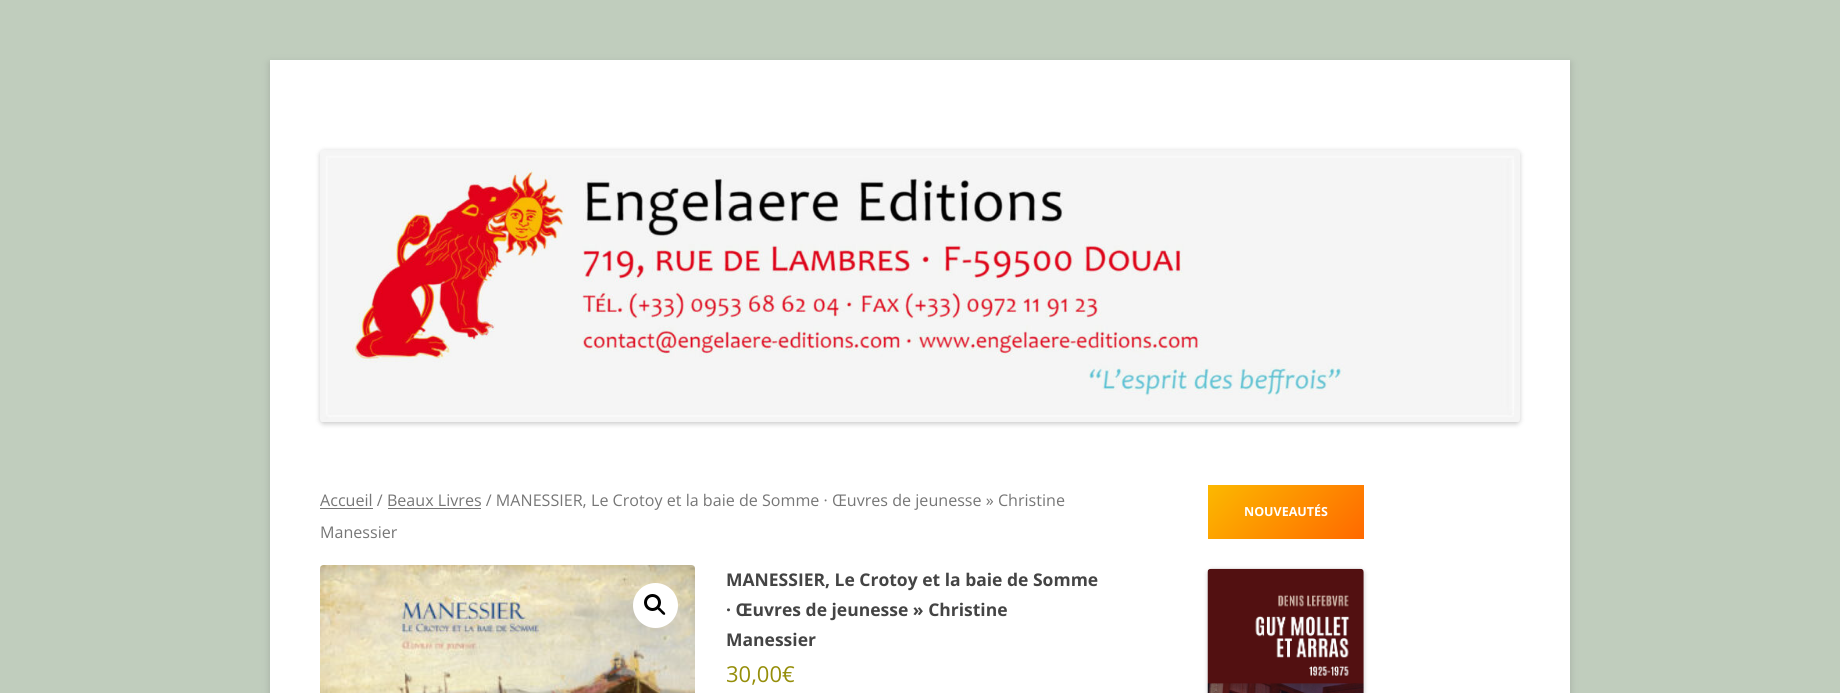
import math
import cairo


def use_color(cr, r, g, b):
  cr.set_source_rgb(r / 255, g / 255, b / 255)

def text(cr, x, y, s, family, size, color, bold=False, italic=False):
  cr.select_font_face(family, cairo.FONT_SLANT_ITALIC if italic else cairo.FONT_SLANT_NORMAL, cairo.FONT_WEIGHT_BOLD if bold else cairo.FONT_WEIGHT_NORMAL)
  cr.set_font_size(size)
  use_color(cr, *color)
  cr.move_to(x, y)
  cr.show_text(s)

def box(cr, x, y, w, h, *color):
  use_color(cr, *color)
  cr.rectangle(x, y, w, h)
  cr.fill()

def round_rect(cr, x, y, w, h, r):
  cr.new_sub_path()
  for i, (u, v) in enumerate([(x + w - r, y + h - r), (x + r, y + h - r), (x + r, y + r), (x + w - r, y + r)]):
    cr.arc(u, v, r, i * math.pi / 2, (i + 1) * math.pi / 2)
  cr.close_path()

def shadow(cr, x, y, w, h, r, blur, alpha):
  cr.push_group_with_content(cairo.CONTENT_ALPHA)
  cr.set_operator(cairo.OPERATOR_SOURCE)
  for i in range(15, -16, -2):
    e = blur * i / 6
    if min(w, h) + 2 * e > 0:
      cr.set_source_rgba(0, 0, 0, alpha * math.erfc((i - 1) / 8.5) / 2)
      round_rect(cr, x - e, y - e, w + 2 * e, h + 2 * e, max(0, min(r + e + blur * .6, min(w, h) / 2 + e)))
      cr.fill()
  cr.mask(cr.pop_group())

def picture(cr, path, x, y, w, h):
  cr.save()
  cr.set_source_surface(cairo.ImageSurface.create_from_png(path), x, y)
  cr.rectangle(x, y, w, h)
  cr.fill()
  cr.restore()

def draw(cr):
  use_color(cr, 192, 205, 189)
  cr.paint()
  use_color(cr, 100, 100, 100)
  shadow(cr, 270, 63, 1300, 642, 0, 4, 0.3)
  box(cr, 270, 60, 1300, 633, 255, 255, 255)
  use_color(cr, 0, 0, 0)
  shadow(cr, 320, 151, 1200, 273, 4, 2.5, 0.2)
  picture(cr, "img_01.png", 320, 150, 1200, 272)
  box(cr, 320, 508, 53, 1, 118, 118, 118)
  box(cr, 388, 508, 93, 1, 118, 118, 118)
  picture(cr, "img_02.png", 320, 565, 375, 128)
  use_color(cr, 255, 255, 255)
  cr.arc(655.5, 605.5, 22.5, 0, 2 * math.pi)
  cr.fill()
  cr.arc(652.5, 602.5, 7, 0, 2 * math.pi)
  use_color(cr, 0, 0, 0)
  cr.set_line_width(3)
  cr.stroke()
  cr.new_path()
  cr.move_to(657.5, 607.5)
  cr.curve_to(659, 606, 661.5, 609.5, 662, 610)
  cr.curve_to(663, 611, 666, 613, 665, 614.5)
  cr.curve_to(663.5, 616, 661, 612.5, 660.5, 612)
  cr.curve_to(659.5, 611, 656.5, 609, 657.5, 607.5)
  cr.close_path()
  cr.fill()
  gradient = cairo.LinearGradient(1233, 459, 1338, 564)
  gradient.add_color_stop_rgba(0, 0.988, 0.725, 0, 1)
  gradient.add_color_stop_rgba(1, 1, 0.412, 0, 1)
  cr.set_source(gradient)
  cr.rectangle(1208, 485, 156, 54)
  cr.fill()
  use_color(cr, 0, 0, 0)
  shadow(cr, 1208, 570, 156, 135, 4, 2.5, 0.2)
  picture(cr, "img_03.png", 1207, 568, 157, 125)
  text(cr, 320, 506, "Accueil / Beaux Livres / MANESSIER, Le Crotoy et la baie de Somme · Œuvres de jeunesse » Christine", "Open Sans", 16.1, (118, 118, 118))
  text(cr, 320, 538, "Manessier", "Open Sans", 16.1, (118, 118, 118))
  text(cr, 726, 586, "MANESSIER, Le Crotoy et la baie de Somme", "Open Sans", 17.5, (68, 68, 68), bold=True)
  text(cr, 726, 616, "· Œuvres de jeunesse » Christine", "Open Sans", 17.5, (68, 68, 68), bold=True)
  text(cr, 726, 646, "Manessier", "Open Sans", 17.5, (68, 68, 68), bold=True)
  text(cr, 726, 682, "30,00€", "Open Sans", 22, (149, 142, 9))
  text(cr, 1244, 516, "NOUVEAUTÉS", "Open Sans", 12.5, (255, 255, 255), bold=True)


surface = cairo.ImageSurface(cairo.FORMAT_RGB24, 1840, 693)
cr = cairo.Context(surface)
options = cairo.FontOptions()
options.set_hint_metrics(cairo.HINT_METRICS_OFF)
options.set_hint_style(cairo.HINT_STYLE_NONE)
cr.set_font_options(options)
cr.set_miter_limit(4)
draw(cr)
surface.write_to_png("out.png")
